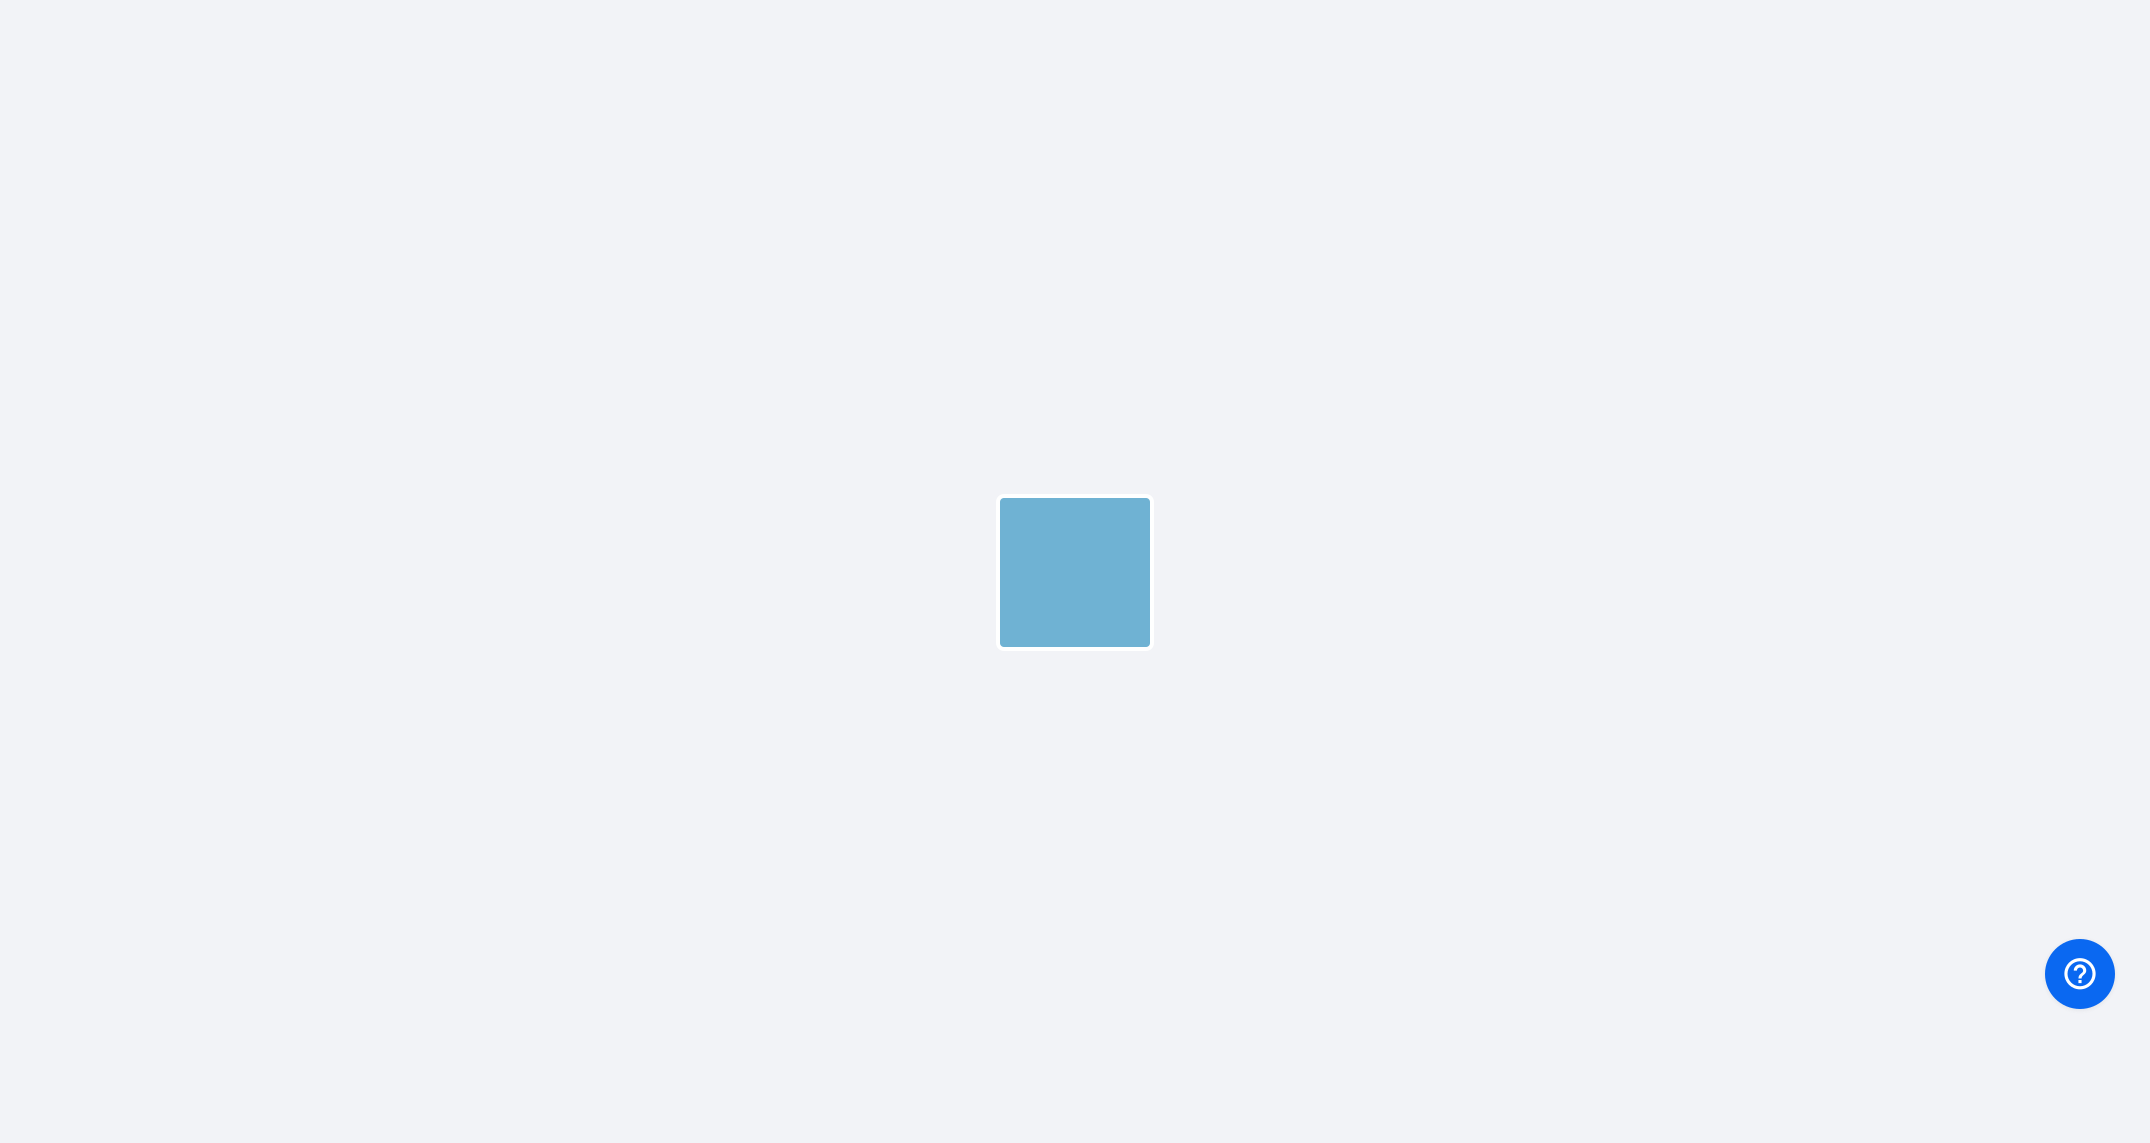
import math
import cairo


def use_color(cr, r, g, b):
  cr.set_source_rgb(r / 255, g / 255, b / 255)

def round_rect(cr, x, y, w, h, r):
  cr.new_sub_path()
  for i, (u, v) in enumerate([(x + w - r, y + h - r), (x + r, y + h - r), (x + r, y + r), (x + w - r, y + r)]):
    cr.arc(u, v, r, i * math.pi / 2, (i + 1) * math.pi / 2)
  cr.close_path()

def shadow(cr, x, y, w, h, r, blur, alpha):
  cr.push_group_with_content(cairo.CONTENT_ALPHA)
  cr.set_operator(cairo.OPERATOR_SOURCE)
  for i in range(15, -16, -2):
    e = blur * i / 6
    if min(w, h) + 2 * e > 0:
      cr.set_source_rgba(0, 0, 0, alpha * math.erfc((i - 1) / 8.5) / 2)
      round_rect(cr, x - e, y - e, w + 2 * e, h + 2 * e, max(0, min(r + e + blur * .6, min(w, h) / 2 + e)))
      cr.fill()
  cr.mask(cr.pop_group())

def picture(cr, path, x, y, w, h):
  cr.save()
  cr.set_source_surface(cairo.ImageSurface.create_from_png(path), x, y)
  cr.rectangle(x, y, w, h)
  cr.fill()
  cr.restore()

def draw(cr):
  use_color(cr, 242, 243, 247)
  cr.paint()
  use_color(cr, 111, 178, 211)
  round_rect(cr, 998, 496, 154, 153, 6)
  cr.fill_preserve()
  use_color(cr, 255, 255, 255)
  cr.set_line_width(4)
  cr.stroke()
  use_color(cr, 0, 0, 0)
  shadow(cr, 2045, 940, 70, 70, 35, 2.5, 0.07)
  use_color(cr, 10, 104, 241)
  cr.arc(2080, 974, 35, 0, 2 * math.pi)
  cr.fill()
  picture(cr, "img_01.png", 2064, 958, 32, 32)


surface = cairo.ImageSurface(cairo.FORMAT_RGB24, 2150, 1143)
cr = cairo.Context(surface)
options = cairo.FontOptions()
options.set_hint_metrics(cairo.HINT_METRICS_OFF)
options.set_hint_style(cairo.HINT_STYLE_NONE)
cr.set_font_options(options)
cr.set_miter_limit(4)
draw(cr)
surface.write_to_png("out.png")
